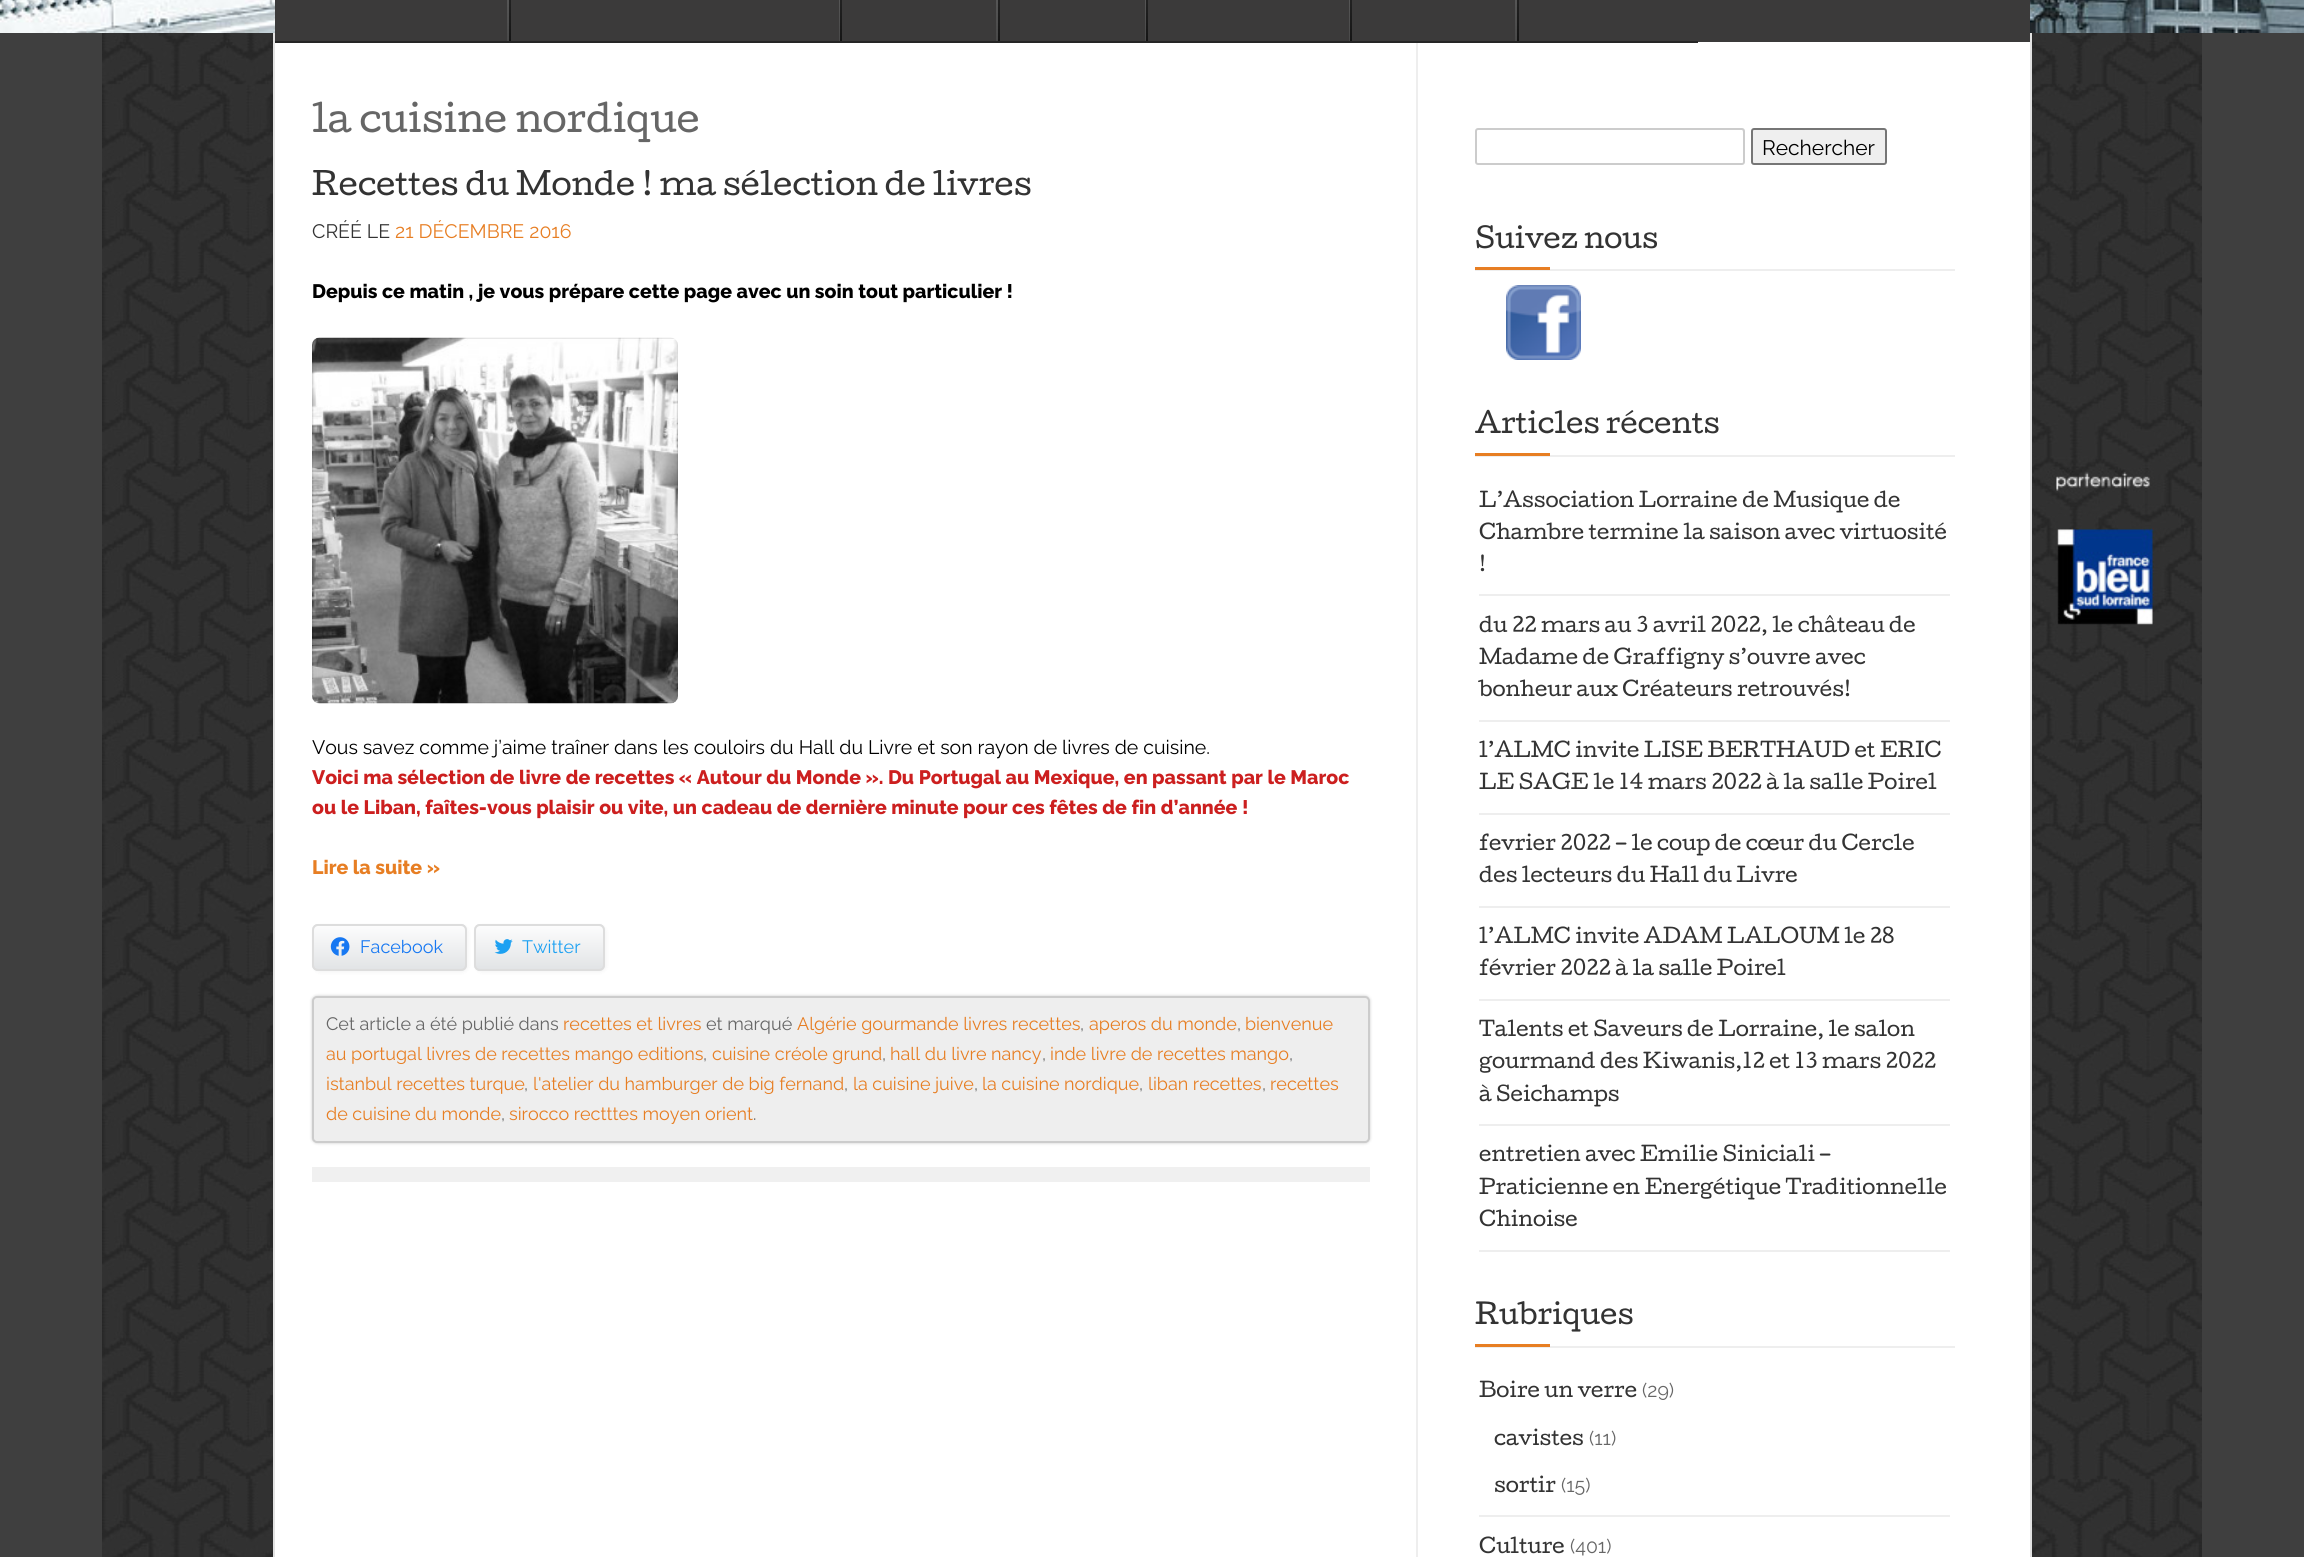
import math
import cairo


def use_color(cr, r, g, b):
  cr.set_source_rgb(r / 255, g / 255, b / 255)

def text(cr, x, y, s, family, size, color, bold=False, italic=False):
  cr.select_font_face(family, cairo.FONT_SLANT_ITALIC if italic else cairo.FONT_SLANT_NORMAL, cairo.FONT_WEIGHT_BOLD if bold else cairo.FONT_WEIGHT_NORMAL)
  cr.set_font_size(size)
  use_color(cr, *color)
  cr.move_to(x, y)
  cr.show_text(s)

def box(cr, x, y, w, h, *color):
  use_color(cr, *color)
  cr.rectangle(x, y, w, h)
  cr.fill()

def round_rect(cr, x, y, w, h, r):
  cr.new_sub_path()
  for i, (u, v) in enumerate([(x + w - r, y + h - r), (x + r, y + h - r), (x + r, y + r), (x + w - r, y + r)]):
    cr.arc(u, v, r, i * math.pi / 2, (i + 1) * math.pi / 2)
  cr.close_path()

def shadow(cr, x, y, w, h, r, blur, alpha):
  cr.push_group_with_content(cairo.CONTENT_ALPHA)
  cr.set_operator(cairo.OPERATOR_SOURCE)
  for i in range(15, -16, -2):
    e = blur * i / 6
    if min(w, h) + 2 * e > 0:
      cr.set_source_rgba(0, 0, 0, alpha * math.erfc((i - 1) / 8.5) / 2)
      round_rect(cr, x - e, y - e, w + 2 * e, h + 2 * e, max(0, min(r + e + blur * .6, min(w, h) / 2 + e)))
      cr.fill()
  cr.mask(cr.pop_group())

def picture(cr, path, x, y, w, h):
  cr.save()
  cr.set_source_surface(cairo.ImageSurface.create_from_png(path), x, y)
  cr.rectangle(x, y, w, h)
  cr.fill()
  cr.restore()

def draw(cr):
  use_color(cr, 63, 63, 63)
  cr.paint()
  picture(cr, "img_01.png", 102, 33, 2100, 1524)
  picture(cr, "img_02.png", 0, 0, 2304, 33)
  box(cr, 275, 42, 1755, 1515, 255, 255, 255)
  box(cr, 2030, 33, 2, 1524, 226, 226, 226)
  box(cr, 273, 33, 2, 1524, 226, 226, 226)
  box(cr, 275, 0, 1755, 42, 59, 58, 58)
  box(cr, 275, 41, 1423, 2, 37, 37, 37)
  gradient = cairo.LinearGradient(508, -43, 508, 41)
  gradient.add_color_stop_rgba(0, 0.388, 0.388, 0.388, 1)
  gradient.add_color_stop_rgba(1, 0.286, 0.286, 0.286, 1)
  cr.set_source(gradient)
  cr.rectangle(507, 0, 2, 41)
  cr.fill()
  gradient = cairo.LinearGradient(509, -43, 509, 41)
  gradient.add_color_stop_rgba(0, 0.184, 0.184, 0.184, 1)
  gradient.add_color_stop_rgba(1, 0.082, 0.082, 0.082, 1)
  cr.set_source(gradient)
  cr.rectangle(509, 0, 2, 41)
  cr.fill()
  gradient = cairo.LinearGradient(839, -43, 839, 41)
  gradient.add_color_stop_rgba(0, 0.388, 0.388, 0.388, 1)
  gradient.add_color_stop_rgba(1, 0.286, 0.286, 0.286, 1)
  cr.set_source(gradient)
  cr.rectangle(839, 0, 1, 41)
  cr.fill()
  gradient = cairo.LinearGradient(841, -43, 841, 41)
  gradient.add_color_stop_rgba(0, 0.184, 0.184, 0.184, 1)
  gradient.add_color_stop_rgba(1, 0.082, 0.082, 0.082, 1)
  cr.set_source(gradient)
  cr.rectangle(840, 0, 2, 41)
  cr.fill()
  gradient = cairo.LinearGradient(997, -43, 997, 41)
  gradient.add_color_stop_rgba(0, 0.388, 0.388, 0.388, 1)
  gradient.add_color_stop_rgba(1, 0.286, 0.286, 0.286, 1)
  cr.set_source(gradient)
  cr.rectangle(996, 0, 2, 41)
  cr.fill()
  gradient = cairo.LinearGradient(998, -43, 998, 41)
  gradient.add_color_stop_rgba(0, 0.184, 0.184, 0.184, 1)
  gradient.add_color_stop_rgba(1, 0.082, 0.082, 0.082, 1)
  cr.set_source(gradient)
  cr.rectangle(998, 0, 2, 41)
  cr.fill()
  gradient = cairo.LinearGradient(1145, -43, 1145, 41)
  gradient.add_color_stop_rgba(0, 0.388, 0.388, 0.388, 1)
  gradient.add_color_stop_rgba(1, 0.286, 0.286, 0.286, 1)
  cr.set_source(gradient)
  cr.rectangle(1145, 0, 1, 41)
  cr.fill()
  gradient = cairo.LinearGradient(1147, -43, 1147, 41)
  gradient.add_color_stop_rgba(0, 0.184, 0.184, 0.184, 1)
  gradient.add_color_stop_rgba(1, 0.082, 0.082, 0.082, 1)
  cr.set_source(gradient)
  cr.rectangle(1146, 0, 2, 41)
  cr.fill()
  gradient = cairo.LinearGradient(1349, -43, 1349, 41)
  gradient.add_color_stop_rgba(0, 0.388, 0.388, 0.388, 1)
  gradient.add_color_stop_rgba(1, 0.286, 0.286, 0.286, 1)
  cr.set_source(gradient)
  cr.rectangle(1349, 0, 1, 41)
  cr.fill()
  gradient = cairo.LinearGradient(1351, -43, 1351, 41)
  gradient.add_color_stop_rgba(0, 0.184, 0.184, 0.184, 1)
  gradient.add_color_stop_rgba(1, 0.082, 0.082, 0.082, 1)
  cr.set_source(gradient)
  cr.rectangle(1350, 0, 2, 41)
  cr.fill()
  gradient = cairo.LinearGradient(1516, -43, 1516, 41)
  gradient.add_color_stop_rgba(0, 0.388, 0.388, 0.388, 1)
  gradient.add_color_stop_rgba(1, 0.286, 0.286, 0.286, 1)
  cr.set_source(gradient)
  cr.rectangle(1515, 0, 2, 41)
  cr.fill()
  gradient = cairo.LinearGradient(1517, -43, 1517, 41)
  gradient.add_color_stop_rgba(0, 0.184, 0.184, 0.184, 1)
  gradient.add_color_stop_rgba(1, 0.082, 0.082, 0.082, 1)
  cr.set_source(gradient)
  cr.rectangle(1517, 0, 2, 41)
  cr.fill()
  box(cr, 1416, 43, 2, 1514, 238, 238, 238)
  box(cr, 312, 1167, 1058, 15, 240, 240, 240)
  picture(cr, "img_03.png", 312, 337, 366, 367)
  use_color(cr, 0, 0, 0)
  shadow(cr, 314, 926, 154, 46, 6, 2, 0.05)
  use_color(cr, 226, 228, 230)
  round_rect(cr, 312, 924, 155, 47, 6)
  cr.fill()
  cr.save()
  round_rect(cr, 312, 924, 155, 47, 6)
  cr.clip()
  gradient = cairo.LinearGradient(389, 926, 389, 969)
  gradient.add_color_stop_rgba(0, 1, 1, 1, 0.9)
  gradient.add_color_stop_rgba(1, 1, 1, 1, 0)
  cr.set_source(gradient)
  cr.rectangle(312, 926, 155, 42)
  cr.fill()
  cr.restore()
  round_rect(cr, 313, 925, 153, 45, 5)
  use_color(cr, 221, 221, 221)
  cr.stroke()
  picture(cr, "img_04.png", 330, 937, 20, 19)
  use_color(cr, 0, 0, 0)
  shadow(cr, 476, 926, 130, 46, 6, 2, 0.05)
  use_color(cr, 226, 228, 230)
  round_rect(cr, 474, 924, 131, 47, 6)
  cr.fill()
  cr.save()
  round_rect(cr, 474, 924, 131, 47, 6)
  cr.clip()
  gradient = cairo.LinearGradient(539, 926, 539, 969)
  gradient.add_color_stop_rgba(0, 1, 1, 1, 0.9)
  gradient.add_color_stop_rgba(1, 1, 1, 1, 0)
  cr.set_source(gradient)
  cr.rectangle(474, 926, 131, 42)
  cr.fill()
  cr.restore()
  round_rect(cr, 475, 925, 129, 45, 5)
  use_color(cr, 221, 221, 221)
  cr.stroke()
  picture(cr, "img_05.png", 494, 939, 19, 15)
  use_color(cr, 153, 153, 153)
  shadow(cr, 312, 996, 1058, 147, 5, 1.5, 0.5)
  use_color(cr, 238, 238, 238)
  round_rect(cr, 313, 997, 1056, 145, 4)
  cr.fill_preserve()
  use_color(cr, 204, 204, 204)
  cr.stroke()
  use_color(cr, 236, 236, 236)
  cr.new_path()
  cr.move_to(1478, 130)
  cr.line_to(1742, 130)
  cr.line_to(1743, 132)
  cr.line_to(1743, 130)
  cr.curve_to(1743, 130, 1742, 129, 1742, 129)
  cr.line_to(1478, 129)
  cr.curve_to(1477, 129, 1476, 130, 1476, 130)
  cr.line_to(1476, 132)
  cr.curve_to(1476, 131, 1477, 130, 1478, 130)
  cr.close_path()
  cr.fill()
  round_rect(cr, 1476, 129, 268, 35, 2)
  use_color(cr, 204, 204, 204)
  cr.stroke()
  use_color(cr, 239, 239, 239)
  round_rect(cr, 1752, 129, 134, 35, 2)
  cr.fill_preserve()
  use_color(cr, 118, 118, 118)
  cr.stroke()
  box(cr, 1475, 269, 480, 2, 238, 238, 238)
  box(cr, 1475, 267, 75, 3, 231, 126, 35)
  picture(cr, "img_06.png", 1506, 285, 75, 75)
  box(cr, 1475, 455, 480, 2, 238, 238, 238)
  box(cr, 1475, 453, 75, 3, 231, 126, 35)
  box(cr, 1479, 594, 471, 2, 238, 238, 238)
  box(cr, 1479, 720, 471, 2, 238, 238, 238)
  box(cr, 1479, 813, 471, 2, 238, 238, 238)
  box(cr, 1479, 906, 471, 2, 238, 238, 238)
  box(cr, 1479, 999, 471, 2, 238, 238, 238)
  box(cr, 1479, 1124, 471, 2, 238, 238, 238)
  box(cr, 1479, 1250, 471, 2, 238, 238, 238)
  box(cr, 1475, 1346, 480, 2, 238, 238, 238)
  box(cr, 1475, 1344, 75, 3, 231, 126, 35)
  box(cr, 1479, 1515, 471, 2, 238, 238, 238)
  text(cr, 312, 132, "la cuisine nordique", "Cutive", 36, (102, 102, 102))
  cr.save()
  cr.rectangle(312, 170, 1058, 826)
  cr.clip()
  text(cr, 312, 195, "Recettes du Monde ! ma sélection de livres", "Cutive", 30, (51, 51, 51))
  cr.restore()
  text(cr, 312, 238, "CRÉÉ LE", "Raleway", 19.5, (51, 51, 51))
  text(cr, 395, 238, "21 DÉCEMBRE 2016", "Raleway", 19.5, (231, 126, 35))
  text(cr, 312, 298, "Depuis ce matin , je vous prépare cette page avec un soin tout particulier !", "Raleway ExtraBold", 19.5, (0, 0, 0))
  text(cr, 312, 754, "Vous savez comme j’aime traîner dans les couloirs du Hall du Livre et son rayon de livres de cuisine.", "Raleway", 19.5, (0, 0, 0))
  text(cr, 312, 784, "Voici ma sélection de livre de recettes « Autour du Monde ». Du Portugal au Mexique, en passant par le Maroc", "Raleway ExtraBold", 19.5, (204, 31, 31))
  text(cr, 312, 814, "ou le Liban, faîtes-vous plaisir ou vite, un cadeau de dernière minute pour ces fêtes de fin d’année !", "Raleway ExtraBold", 19.5, (204, 31, 31))
  text(cr, 312, 874, "Lire la suite »", "Raleway ExtraBold", 19.5, (231, 126, 35))
  text(cr, 360, 953, "Facebook", "Raleway", 18, (23, 120, 242))
  text(cr, 522, 953, "Twitter", "Raleway", 18, (29, 161, 242))
  text(cr, 326, 1030, "Cet article a été publié dans", "Raleway", 18, (102, 102, 102))
  text(cr, 563, 1030, "recettes et livres", "Raleway", 18, (231, 126, 35))
  text(cr, 706, 1030, "et marqué", "Raleway", 18, (102, 102, 102))
  text(cr, 797, 1030, "Algérie gourmande livres recettes", "Raleway", 18, (231, 126, 35))
  text(cr, 1080, 1030, ",", "Raleway", 18, (102, 102, 102))
  text(cr, 1089, 1030, "aperos du monde", "Raleway", 18, (231, 126, 35))
  text(cr, 1237, 1030, ",", "Raleway", 18, (102, 102, 102))
  text(cr, 1245, 1030, "bienvenue", "Raleway", 18, (231, 126, 35))
  text(cr, 326, 1060, "au portugal livres de recettes mango editions", "Raleway", 18, (231, 126, 35))
  text(cr, 703, 1060, ",", "Raleway", 18, (102, 102, 102))
  text(cr, 712, 1060, "cuisine créole grund", "Raleway", 18, (231, 126, 35))
  text(cr, 882, 1060, ",", "Raleway", 18, (102, 102, 102))
  text(cr, 890, 1060, "hall du livre nancy", "Raleway", 18, (231, 126, 35))
  text(cr, 1042, 1060, ",", "Raleway", 18, (102, 102, 102))
  text(cr, 1050, 1060, "inde livre de recettes mango", "Raleway", 18, (231, 126, 35))
  text(cr, 1289, 1060, ",", "Raleway", 18, (102, 102, 102))
  text(cr, 326, 1090, "istanbul recettes turque", "Raleway", 18, (231, 126, 35))
  text(cr, 524, 1090, ",", "Raleway", 18, (102, 102, 102))
  text(cr, 533, 1090, "l'atelier du hamburger de big fernand", "Raleway", 18, (231, 126, 35))
  text(cr, 844, 1090, ",", "Raleway", 18, (102, 102, 102))
  text(cr, 853, 1090, "la cuisine juive", "Raleway", 18, (231, 126, 35))
  text(cr, 974, 1090, ",", "Raleway", 18, (102, 102, 102))
  text(cr, 982, 1090, "la cuisine nordique", "Raleway", 18, (231, 126, 35))
  text(cr, 1139, 1090, ",", "Raleway", 18, (102, 102, 102))
  text(cr, 1148, 1090, "liban recettes", "Raleway", 18, (231, 126, 35))
  text(cr, 1262, 1090, ",", "Raleway", 18, (102, 102, 102))
  text(cr, 1270, 1090, "recettes", "Raleway", 18, (231, 126, 35))
  text(cr, 326, 1120, "de cuisine du monde", "Raleway", 18, (231, 126, 35))
  text(cr, 501, 1120, ",", "Raleway", 18, (102, 102, 102))
  text(cr, 509, 1120, "sirocco rectttes moyen orient", "Raleway", 18, (231, 126, 35))
  text(cr, 753, 1120, ".", "Raleway", 18, (102, 102, 102))
  text(cr, 1762, 155, "Rechercher", "Raleway", 21, (0, 0, 0))
  text(cr, 1475, 248, "Suivez nous", "Cutive", 27, (51, 51, 51))
  text(cr, 1475, 433, "Articles récents", "Cutive", 27, (51, 51, 51))
  text(cr, 1479, 507, "L’Association Lorraine de Musique de", "Cutive", 19.5, (51, 51, 51))
  text(cr, 1479, 539, "Chambre termine la saison avec virtuosité", "Cutive", 19.5, (51, 51, 51))
  text(cr, 1479, 571, "!", "Cutive", 19.5, (51, 51, 51))
  text(cr, 1479, 632, "du 22 mars au 3 avril 2022, le château de", "Cutive", 19.5, (51, 51, 51))
  text(cr, 1479, 664, "Madame de Graffigny s’ouvre avec", "Cutive", 19.5, (51, 51, 51))
  text(cr, 1479, 696, "bonheur aux Créateurs retrouvés!", "Cutive", 19.5, (51, 51, 51))
  text(cr, 1479, 757, "l’ALMC invite LISE BERTHAUD et ERIC", "Cutive", 19.5, (51, 51, 51))
  text(cr, 1479, 789, "LE SAGE le 14 mars 2022 à la salle Poirel", "Cutive", 19.5, (51, 51, 51))
  text(cr, 1479, 850, "fevrier 2022 – le coup de cœur du Cercle", "Cutive", 19.5, (51, 51, 51))
  text(cr, 1479, 882, "des lecteurs du Hall du Livre", "Cutive", 19.5, (51, 51, 51))
  text(cr, 1479, 943, "l’ALMC invite ADAM LALOUM le 28", "Cutive", 19.5, (51, 51, 51))
  text(cr, 1479, 975, "février 2022 à la salle Poirel", "Cutive", 19.5, (51, 51, 51))
  text(cr, 1479, 1036, "Talents et Saveurs de Lorraine, le salon", "Cutive", 19.5, (51, 51, 51))
  text(cr, 1479, 1068, "gourmand des Kiwanis,12 et 13 mars 2022", "Cutive", 19.5, (51, 51, 51))
  text(cr, 1479, 1101, "à Seichamps", "Cutive", 19.5, (51, 51, 51))
  text(cr, 1479, 1161, "entretien avec Emilie Siniciali –", "Cutive", 19.5, (51, 51, 51))
  text(cr, 1479, 1194, "Praticienne en Energétique Traditionnelle", "Cutive", 19.5, (51, 51, 51))
  text(cr, 1479, 1226, "Chinoise", "Cutive", 19.5, (51, 51, 51))
  text(cr, 1475, 1324, "Rubriques", "Cutive", 27, (51, 51, 51))
  text(cr, 1479, 1397, "Boire un verre", "Cutive", 19.5, (51, 51, 51))
  text(cr, 1642, 1397, "(29)", "Raleway", 19.5, (102, 102, 102))
  text(cr, 1494, 1445, "cavistes", "Cutive", 19.5, (51, 51, 51))
  text(cr, 1589, 1445, "(11)", "Raleway", 19.5, (102, 102, 102))
  text(cr, 1494, 1492, "sortir", "Cutive", 19.5, (51, 51, 51))
  text(cr, 1561, 1492, "(15)", "Raleway", 19.5, (102, 102, 102))
  text(cr, 1479, 1553, "Culture", "Cutive", 19.5, (51, 51, 51))
  text(cr, 1570, 1553, "(401)", "Raleway", 19.5, (102, 102, 102))


surface = cairo.ImageSurface(cairo.FORMAT_RGB24, 2304, 1557)
cr = cairo.Context(surface)
options = cairo.FontOptions()
options.set_hint_metrics(cairo.HINT_METRICS_OFF)
options.set_hint_style(cairo.HINT_STYLE_NONE)
cr.set_font_options(options)
cr.set_miter_limit(4)
draw(cr)
surface.write_to_png("out.png")
